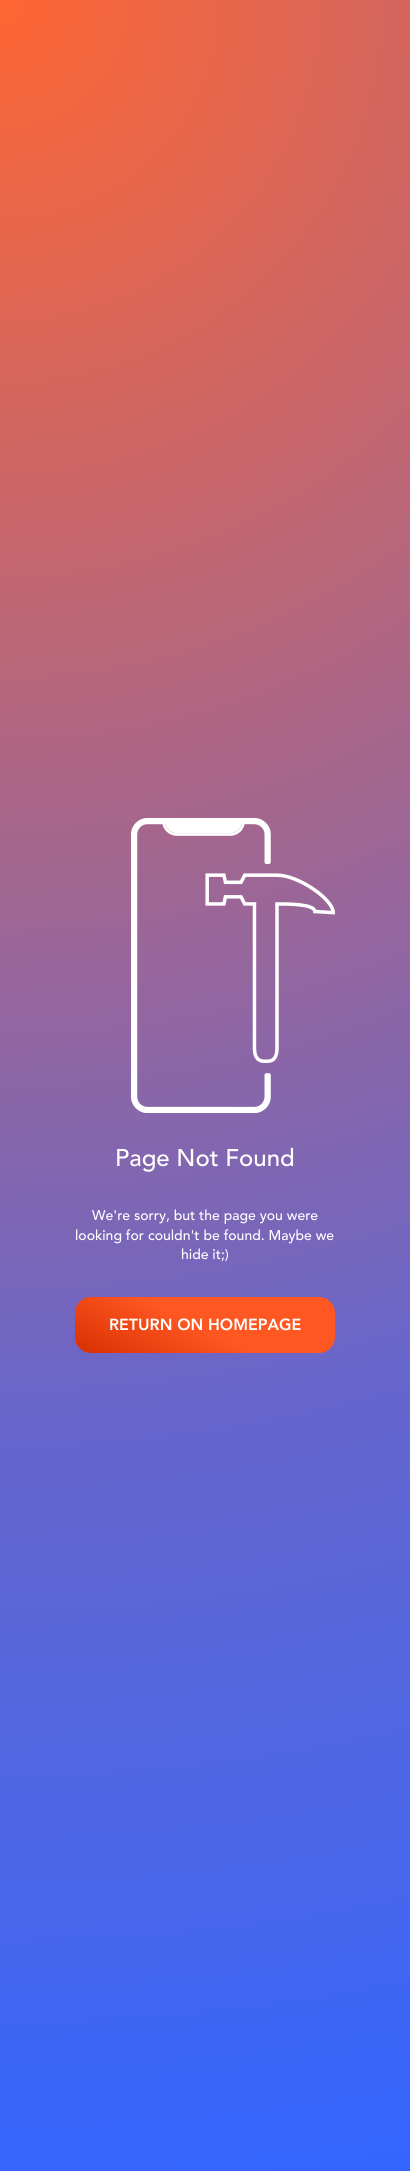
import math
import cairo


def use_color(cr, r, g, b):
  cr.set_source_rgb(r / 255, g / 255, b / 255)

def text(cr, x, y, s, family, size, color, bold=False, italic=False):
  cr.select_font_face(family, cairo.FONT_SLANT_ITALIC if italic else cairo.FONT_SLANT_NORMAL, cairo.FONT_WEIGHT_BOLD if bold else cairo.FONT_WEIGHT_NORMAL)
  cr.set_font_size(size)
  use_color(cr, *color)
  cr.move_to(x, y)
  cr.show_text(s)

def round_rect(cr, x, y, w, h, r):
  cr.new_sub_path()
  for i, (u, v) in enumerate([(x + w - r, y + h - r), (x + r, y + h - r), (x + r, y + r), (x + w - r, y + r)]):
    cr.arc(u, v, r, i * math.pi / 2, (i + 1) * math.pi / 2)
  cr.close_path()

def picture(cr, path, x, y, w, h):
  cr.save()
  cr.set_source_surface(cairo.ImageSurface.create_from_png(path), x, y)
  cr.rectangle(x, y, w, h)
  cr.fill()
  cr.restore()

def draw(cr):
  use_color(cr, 255, 255, 255)
  cr.paint()
  gradient = cairo.RadialGradient(0, 0, 0, 0, 0, 2209)
  gradient.add_color_stop_rgba(0, 1, 0.4, 0.2, 1)
  gradient.add_color_stop_rgba(0.65, 0.4, 0.4, 0.8, 1)
  gradient.add_color_stop_rgba(1, 0.2, 0.4, 1, 1)
  cr.set_source(gradient)
  cr.rectangle(0, 0, 410, 2171)
  cr.fill()
  picture(cr, "img_01.png", 131, 818, 204, 295)
  gradient = cairo.LinearGradient(169, 1399, 241, 1251)
  gradient.add_color_stop_rgba(0, 0.843, 0.184, 0, 1)
  gradient.add_color_stop_rgba(0.48, 1, 0.341, 0.133, 1)
  cr.set_source(gradient)
  round_rect(cr, 75, 1297, 260, 56, 16)
  cr.fill()
  text(cr, 115, 1166, "Page Not Found", "Avenir Medium", 24, (255, 255, 255))
  text(cr, 92, 1220, "We're sorry, but the page you were", "Avenir Medium", 14, (255, 255, 255))
  text(cr, 75, 1240, "looking for couldn't be found. Maybe we", "Avenir Medium", 14, (255, 255, 255))
  text(cr, 181, 1259, "hide it;)", "Avenir Medium", 14, (255, 255, 255))
  text(cr, 109, 1330, "RETURN ON HOMEPAGE", "Avenir Black", 16, (255, 255, 255))


surface = cairo.ImageSurface(cairo.FORMAT_RGB24, 410, 2171)
cr = cairo.Context(surface)
options = cairo.FontOptions()
options.set_hint_metrics(cairo.HINT_METRICS_OFF)
options.set_hint_style(cairo.HINT_STYLE_NONE)
cr.set_font_options(options)
cr.set_miter_limit(4)
draw(cr)
surface.write_to_png("out.png")
